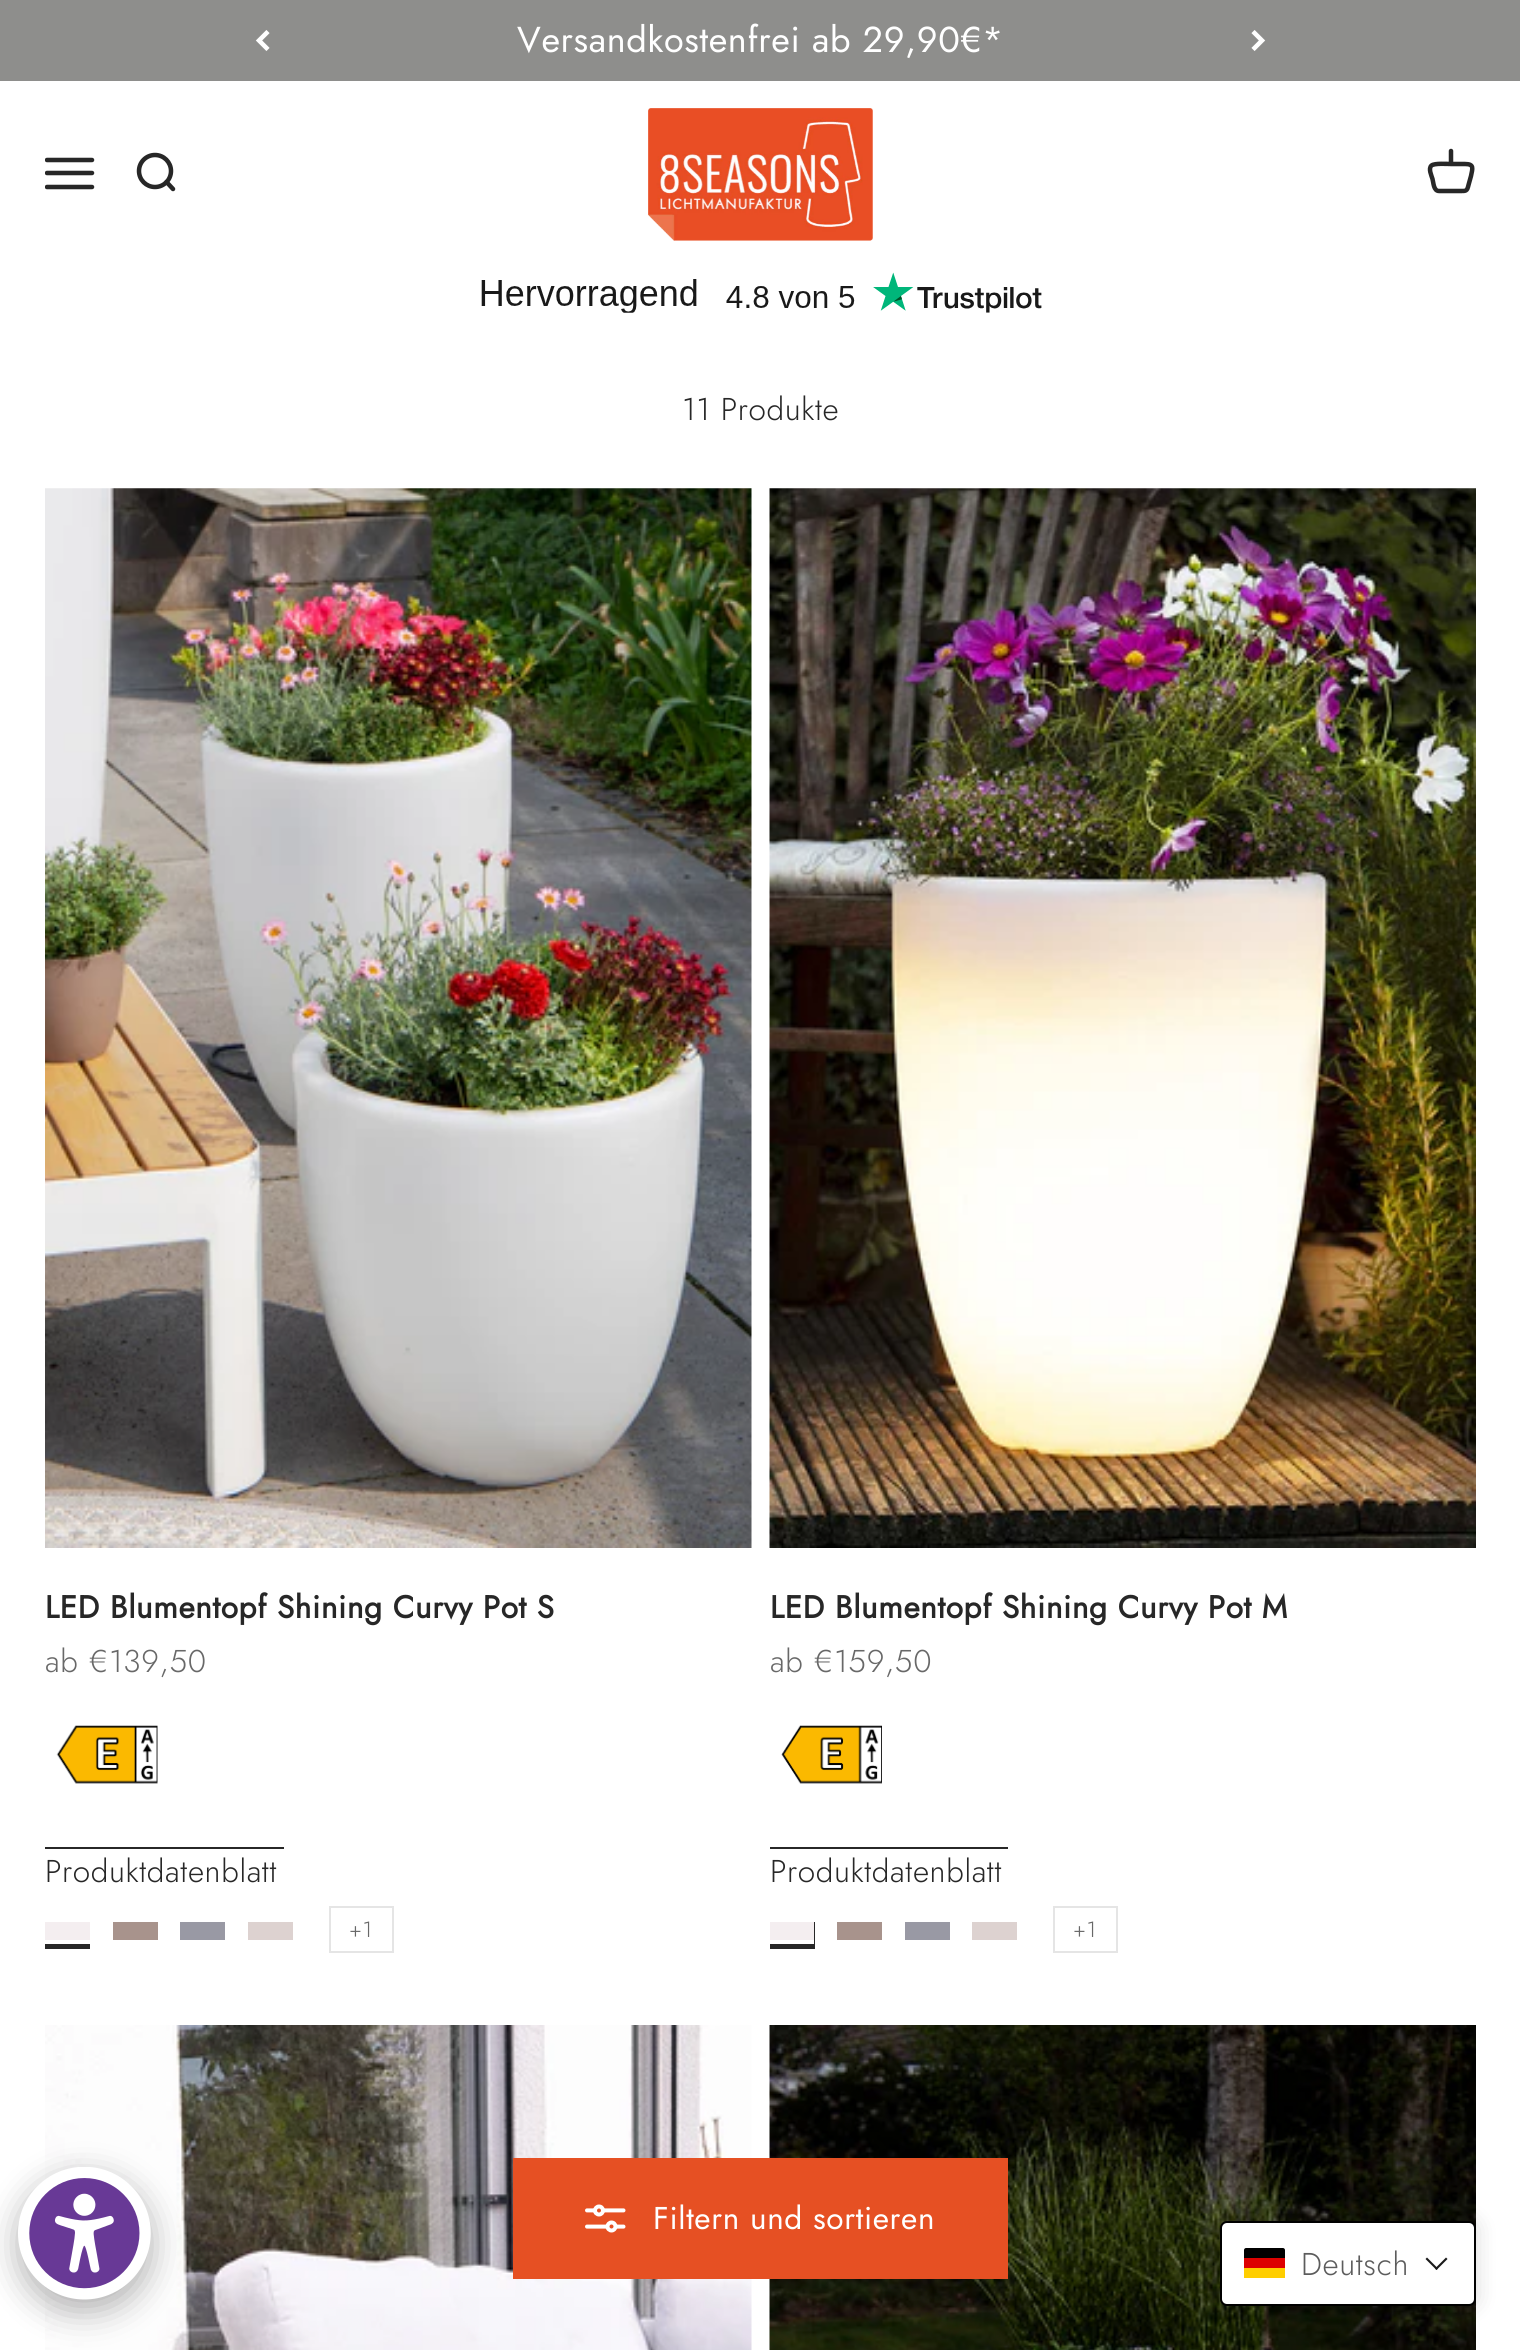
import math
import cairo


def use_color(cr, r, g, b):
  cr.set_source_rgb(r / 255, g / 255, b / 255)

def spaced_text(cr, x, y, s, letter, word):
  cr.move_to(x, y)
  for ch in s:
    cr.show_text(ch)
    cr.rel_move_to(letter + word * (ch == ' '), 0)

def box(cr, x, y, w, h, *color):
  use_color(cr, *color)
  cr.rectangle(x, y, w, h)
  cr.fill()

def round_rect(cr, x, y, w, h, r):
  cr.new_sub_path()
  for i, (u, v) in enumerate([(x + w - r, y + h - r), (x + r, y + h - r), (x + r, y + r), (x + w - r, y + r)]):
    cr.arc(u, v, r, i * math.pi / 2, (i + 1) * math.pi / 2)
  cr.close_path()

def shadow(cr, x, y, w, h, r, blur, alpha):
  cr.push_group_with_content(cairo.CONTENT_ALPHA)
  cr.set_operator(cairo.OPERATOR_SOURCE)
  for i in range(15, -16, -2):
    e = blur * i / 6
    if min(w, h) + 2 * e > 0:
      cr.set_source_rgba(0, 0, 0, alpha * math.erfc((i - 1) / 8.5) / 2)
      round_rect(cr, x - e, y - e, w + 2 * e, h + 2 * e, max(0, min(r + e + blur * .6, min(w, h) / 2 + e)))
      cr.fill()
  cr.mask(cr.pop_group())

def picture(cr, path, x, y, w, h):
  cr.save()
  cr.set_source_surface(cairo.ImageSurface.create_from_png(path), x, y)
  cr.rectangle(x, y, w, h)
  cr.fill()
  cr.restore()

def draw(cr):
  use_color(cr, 255, 255, 255)
  cr.paint()
  box(cr, 0, 0, 1520, 81, 142, 142, 140)
  cr.new_path()
  cr.move_to(268, 31.5)
  cr.line_to(259, 40.5)
  cr.line_to(268, 49.5)
  use_color(cr, 255, 255, 255)
  cr.set_line_width(4.5)
  cr.stroke()
  cr.new_path()
  cr.move_to(1253, 49.5)
  cr.line_to(1262, 40.5)
  cr.line_to(1253, 31.5)
  cr.stroke()
  cr.save()
  cr.rectangle(45, 149, 50, 49)
  cr.clip()
  cr.new_path()
  cr.move_to(47, 160)
  cr.line_to(92, 160)
  cr.move_to(47, 173)
  cr.line_to(92, 173)
  cr.move_to(47, 187)
  cr.line_to(92, 187)
  use_color(cr, 39, 39, 39)
  cr.set_line_cap(cairo.LINE_CAP_ROUND)
  cr.stroke()
  cr.restore()
  cr.arc(155, 171, 16, 0, 2 * math.pi)
  use_color(cr, 39, 39, 39)
  cr.stroke()
  cr.new_path()
  cr.move_to(166.5, 182)
  cr.line_to(173, 189)
  cr.set_line_cap(cairo.LINE_CAP_ROUND)
  cr.set_line_join(cairo.LINE_JOIN_ROUND)
  cr.stroke()
  picture(cr, "img_01.png", 648, 108, 225, 133)
  cr.new_path()
  cr.move_to(1451, 164)
  cr.curve_to(1447.5, 164, 1434.5, 163, 1431.5, 165.5)
  cr.curve_to(1428, 168.5, 1431.5, 175.5, 1432.5, 179)
  cr.curve_to(1433.5, 182.5, 1433.5, 191, 1439, 191)
  cr.line_to(1459.5, 191)
  cr.curve_to(1466, 191, 1467, 191.5, 1468.5, 185)
  cr.line_to(1471, 176)
  cr.curve_to(1472.5, 168.5, 1474.5, 164, 1465, 164)
  cr.close_path()
  cr.move_to(1451, 164)
  cr.line_to(1451, 151)
  cr.stroke()
  picture(cr, "img_02.png", 481, 272, 561, 41)
  picture(cr, "img_03.png", 45, 488, 707, 1060)
  picture(cr, "img_04.png", 56, 1725, 102, 59)
  box(cr, 45, 1847, 239, 2, 39, 39, 39)
  box(cr, 45, 1922, 45, 18, 244, 238, 240)
  box(cr, 45, 1944, 45, 5, 39, 39, 39)
  box(cr, 113, 1922, 45, 18, 168, 147, 140)
  box(cr, 180, 1922, 45, 18, 153, 153, 164)
  box(cr, 248, 1922, 45, 18, 221, 210, 208)
  cr.rectangle(330, 1907, 63, 45)
  use_color(cr, 229, 229, 229)
  cr.set_line_width(2)
  cr.set_line_cap(cairo.LINE_CAP_BUTT)
  cr.set_line_join(cairo.LINE_JOIN_MITER)
  cr.stroke()
  picture(cr, "img_05.png", 769, 488, 707, 1060)
  picture(cr, "img_06.png", 781, 1725, 101, 59)
  box(cr, 770, 1847, 238, 2, 39, 39, 39)
  box(cr, 770, 1922, 44, 18, 244, 238, 240)
  use_color(cr, 39, 39, 39)
  cr.new_path()
  cr.move_to(770, 1944)
  cr.line_to(770, 1949)
  cr.line_to(815, 1949)
  cr.line_to(815, 1922)
  cr.line_to(814, 1922)
  cr.line_to(814, 1944)
  cr.close_path()
  cr.fill()
  box(cr, 837, 1922, 45, 18, 168, 147, 140)
  box(cr, 905, 1922, 45, 18, 153, 153, 164)
  box(cr, 972, 1922, 45, 18, 221, 210, 208)
  cr.rectangle(1054, 1907, 63, 45)
  use_color(cr, 229, 229, 229)
  cr.stroke()
  picture(cr, "img_07.png", 45, 2025, 707, 325)
  picture(cr, "img_08.png", 769, 2025, 707, 325)
  box(cr, 513, 2158, 495, 121, 230, 80, 35)
  picture(cr, "img_09.png", 585, 2204, 41, 29)
  use_color(cr, 0, 0, 0)
  shadow(cr, 1220, 2221, 256, 85, 7, 11, 0.15)
  use_color(cr, 255, 255, 255)
  round_rect(cr, 1221, 2222, 254, 83, 6)
  cr.fill_preserve()
  use_color(cr, 0, 0, 0)
  cr.stroke()
  box(cr, 1244, 2268, 41, 10, 255, 206, 0)
  use_color(cr, 0, 0, 0)
  cr.new_path()
  cr.move_to(1246, 2248)
  cr.line_to(1283, 2248)
  cr.curve_to(1284, 2248, 1285, 2249, 1285, 2250)
  cr.line_to(1285, 2258)
  cr.line_to(1244, 2258)
  cr.line_to(1244, 2250)
  cr.curve_to(1244, 2249, 1245, 2248, 1246, 2248)
  cr.close_path()
  cr.fill()
  box(cr, 1244, 2258, 41, 10, 221, 0, 0)
  use_color(cr, 26, 26, 26)
  cr.new_path()
  cr.move_to(1446, 2257.5)
  cr.line_to(1447.5, 2259)
  cr.line_to(1436.5, 2270)
  cr.line_to(1435, 2268.5)
  cr.close_path()
  cr.fill()
  cr.new_path()
  cr.move_to(1427, 2257.5)
  cr.line_to(1438, 2268.5)
  cr.line_to(1436.5, 2270)
  cr.line_to(1425.5, 2259)
  cr.close_path()
  cr.fill()
  use_color(cr, 0, 0, 0)
  shadow(cr, 18, 2178, 133, 133, 66.5, 17, 0.3)
  picture(cr, "img_10.png", 18, 2167, 133, 133)
  cr.select_font_face("Jost")
  cr.set_font_size(36)
  use_color(cr, 255, 255, 255)
  spaced_text(cr, 517, 52, "Versandkostenfrei ab 29,90€*", 0.65, 0)
  cr.select_font_face("Jost Light")
  cr.set_font_size(31.5)
  use_color(cr, 39, 39, 39)
  spaced_text(cr, 682, 420, "11 Produkte", 0.65, 0)
  cr.select_font_face("Jost", cairo.FONT_SLANT_NORMAL, cairo.FONT_WEIGHT_BOLD)
  spaced_text(cr, 45, 1618, "LED Blumentopf Shining Curvy Pot S", 0.65, 0)
  cr.select_font_face("Jost Light")
  use_color(cr, 104, 104, 104)
  spaced_text(cr, 45, 1672, "ab €139,50", 0.65, 0)
  use_color(cr, 39, 39, 39)
  spaced_text(cr, 45, 1882, "Produktdatenblatt", 0.65, 0)
  cr.set_font_size(22)
  use_color(cr, 104, 104, 104)
  spaced_text(cr, 349, 1937, "+1", 0.65, 0)
  cr.select_font_face("Jost", cairo.FONT_SLANT_NORMAL, cairo.FONT_WEIGHT_BOLD)
  cr.set_font_size(31.5)
  use_color(cr, 39, 39, 39)
  spaced_text(cr, 770, 1618, "LED Blumentopf Shining Curvy Pot M", 0.65, 0)
  cr.select_font_face("Jost Light")
  use_color(cr, 104, 104, 104)
  spaced_text(cr, 770, 1672, "ab €159,50", 0.65, 0)
  use_color(cr, 39, 39, 39)
  spaced_text(cr, 770, 1882, "Produktdatenblatt", 0.65, 0)
  cr.set_font_size(22)
  use_color(cr, 104, 104, 104)
  spaced_text(cr, 1073, 1937, "+1", 0.65, 0)
  cr.select_font_face("Jost")
  cr.set_font_size(31.5)
  use_color(cr, 255, 255, 255)
  spaced_text(cr, 653, 2229, "Filtern und sortieren", 0.65, 0)
  cr.select_font_face("Jost Light")
  use_color(cr, 92, 92, 92)
  spaced_text(cr, 1301, 2275, "Deutsch", 0.65, 0)


surface = cairo.ImageSurface(cairo.FORMAT_RGB24, 1520, 2350)
cr = cairo.Context(surface)
options = cairo.FontOptions()
options.set_hint_metrics(cairo.HINT_METRICS_OFF)
options.set_hint_style(cairo.HINT_STYLE_NONE)
cr.set_font_options(options)
cr.set_miter_limit(4)
draw(cr)
surface.write_to_png("out.png")
